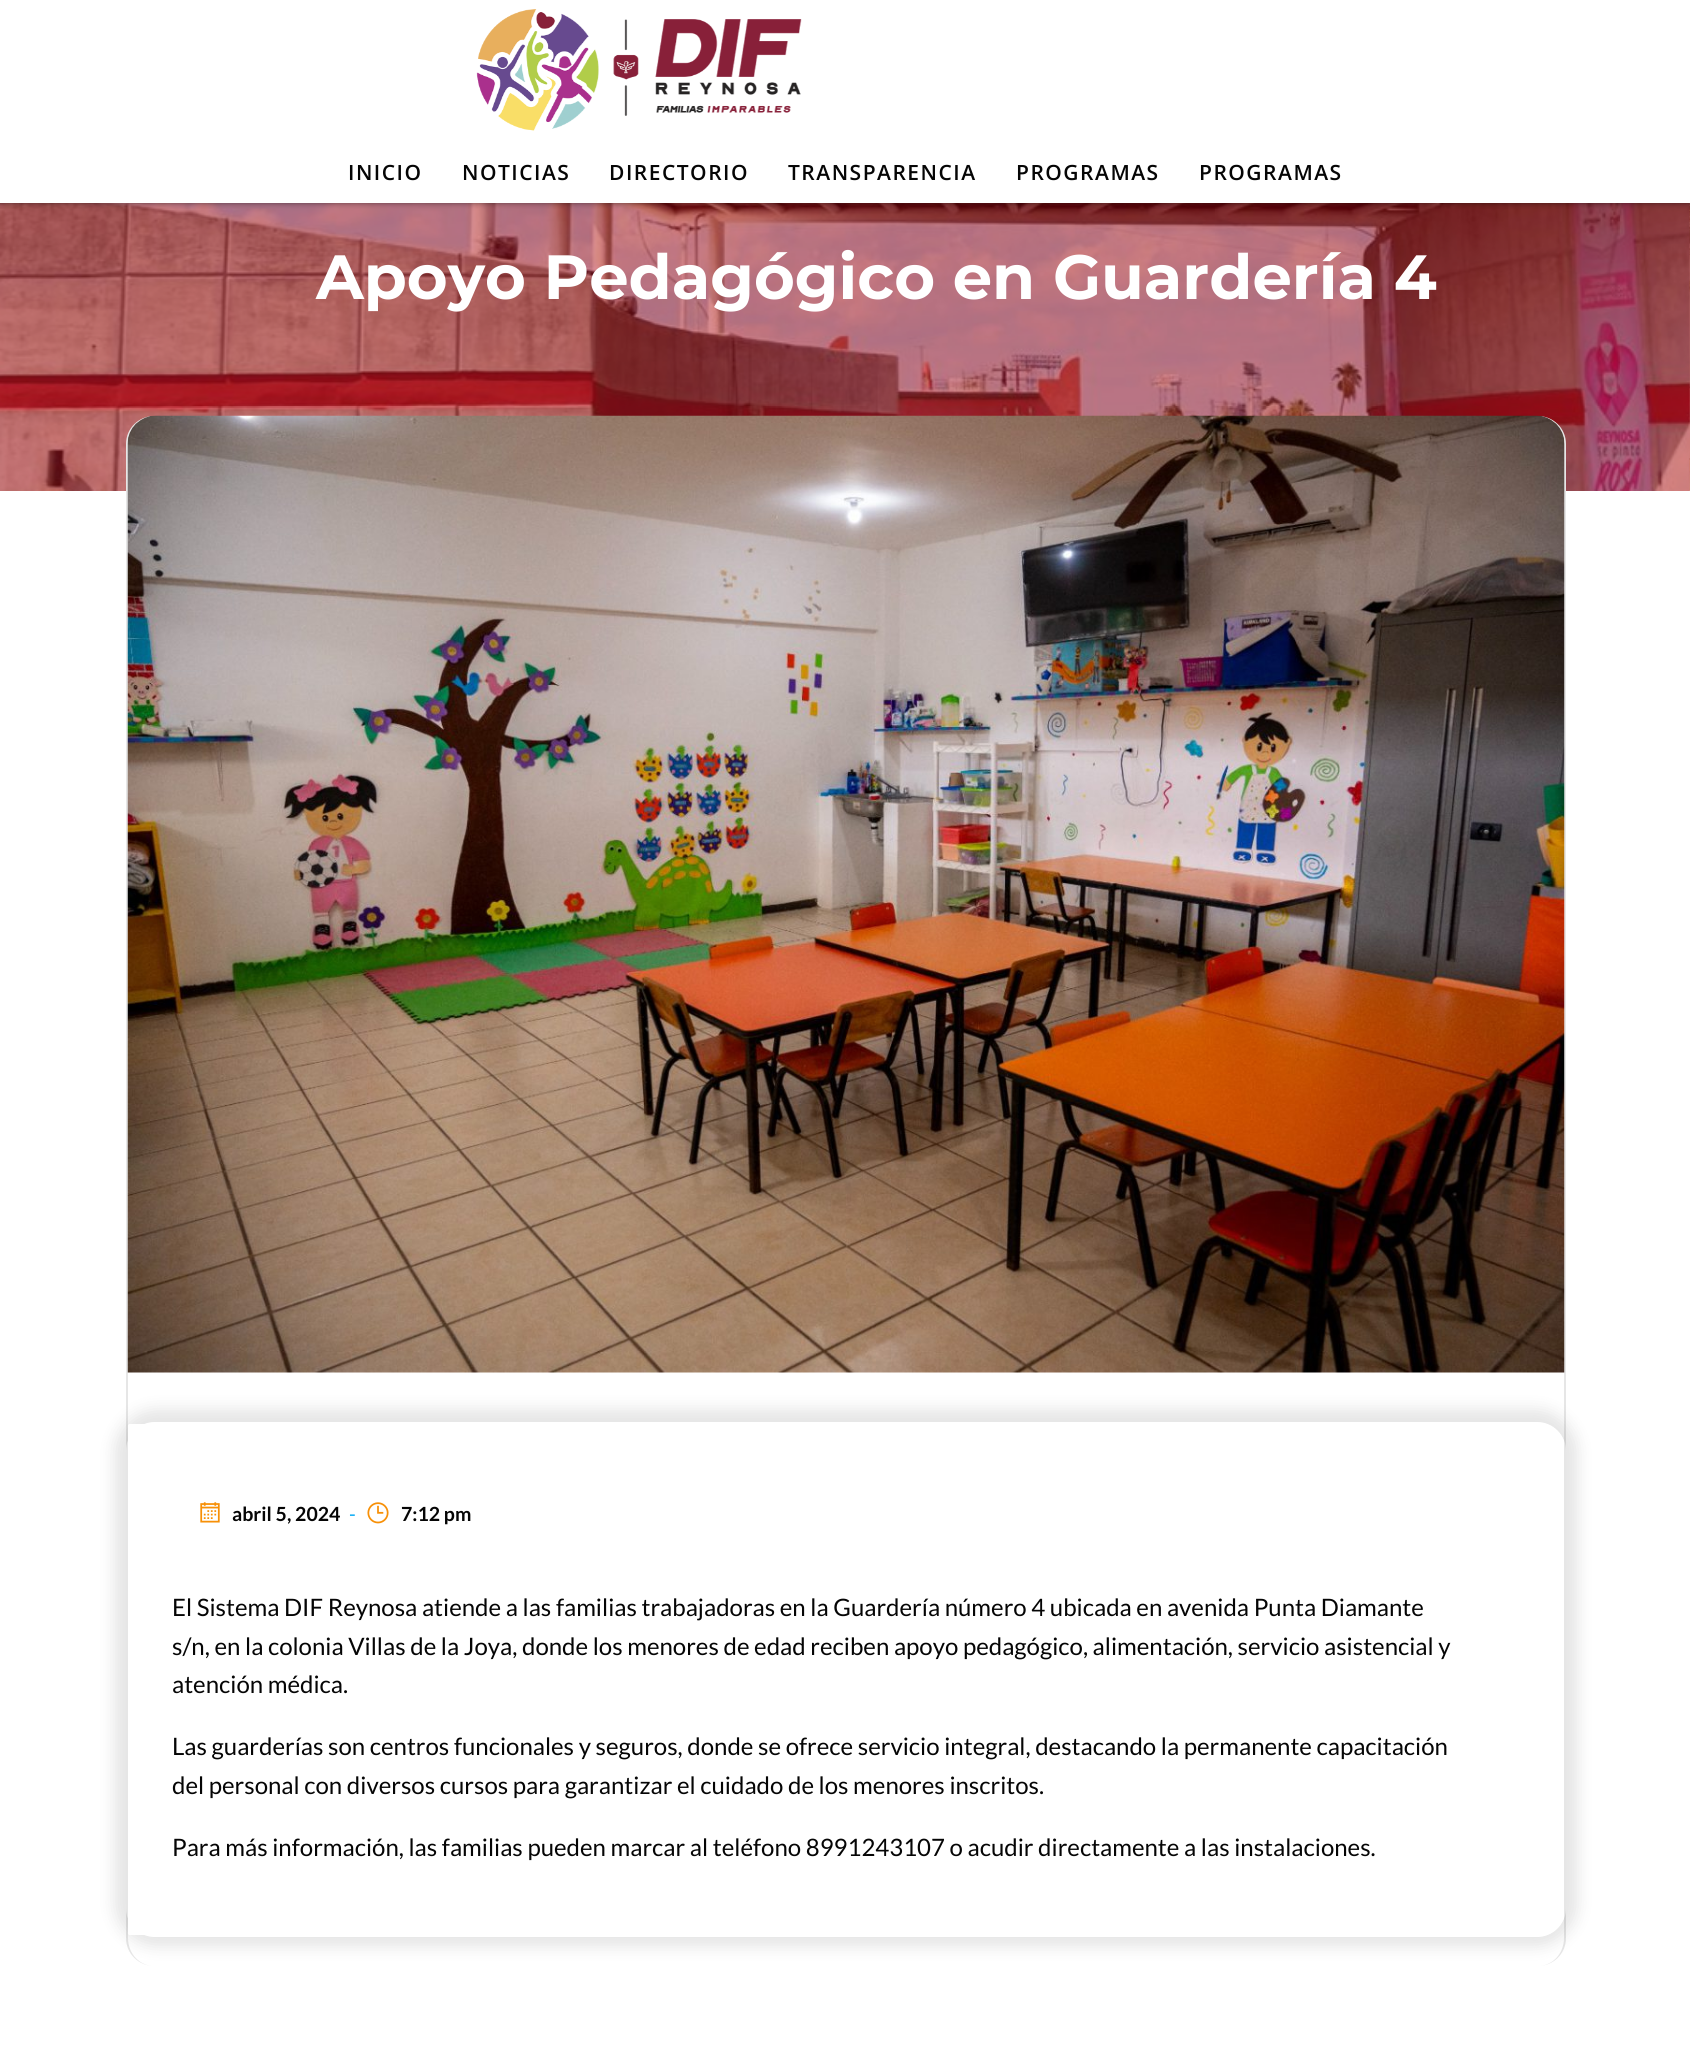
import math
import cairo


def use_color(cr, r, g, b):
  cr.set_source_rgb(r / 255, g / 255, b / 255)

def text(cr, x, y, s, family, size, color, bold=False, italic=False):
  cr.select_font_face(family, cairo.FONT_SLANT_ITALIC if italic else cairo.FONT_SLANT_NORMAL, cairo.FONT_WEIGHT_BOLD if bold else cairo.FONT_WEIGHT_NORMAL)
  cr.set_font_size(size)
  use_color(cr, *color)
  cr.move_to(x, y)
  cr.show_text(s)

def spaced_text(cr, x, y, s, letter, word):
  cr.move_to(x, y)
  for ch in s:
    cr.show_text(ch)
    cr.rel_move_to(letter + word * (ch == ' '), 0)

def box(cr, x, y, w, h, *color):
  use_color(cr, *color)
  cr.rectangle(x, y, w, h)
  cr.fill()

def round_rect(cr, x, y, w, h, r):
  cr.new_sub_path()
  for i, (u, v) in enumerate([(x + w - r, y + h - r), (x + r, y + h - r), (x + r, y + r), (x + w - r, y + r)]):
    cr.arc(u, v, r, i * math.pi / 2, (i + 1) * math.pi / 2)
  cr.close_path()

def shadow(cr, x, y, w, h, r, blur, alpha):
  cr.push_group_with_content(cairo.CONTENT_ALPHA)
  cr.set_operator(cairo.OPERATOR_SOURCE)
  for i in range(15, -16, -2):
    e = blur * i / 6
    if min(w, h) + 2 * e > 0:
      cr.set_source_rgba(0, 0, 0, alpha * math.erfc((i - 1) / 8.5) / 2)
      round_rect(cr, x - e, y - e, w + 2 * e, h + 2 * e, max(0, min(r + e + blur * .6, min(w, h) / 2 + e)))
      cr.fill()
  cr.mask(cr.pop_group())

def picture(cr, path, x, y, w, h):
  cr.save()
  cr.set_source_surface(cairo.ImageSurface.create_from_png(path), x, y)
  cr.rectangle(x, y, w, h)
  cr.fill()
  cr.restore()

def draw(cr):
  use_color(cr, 255, 255, 255)
  cr.paint()
  picture(cr, "img_02.png", 1689, 203, 1, 288)
  picture(cr, "img_03.png", 0, 203, 1690, 288)
  use_color(cr, 0, 0, 0)
  shadow(cr, -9, 0, 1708, 203, 0, 3, 0.5)
  box(cr, 0, 0, 1690, 203, 255, 255, 255)
  picture(cr, "img_01.png", 476, 9, 326, 122)
  cr.new_path()
  cr.move_to(154, 417)
  cr.line_to(1538, 417)
  cr.curve_to(1552, 417, 1564, 429, 1564, 444)
  cr.line_to(1564, 1938)
  cr.curve_to(1564, 1954, 1552, 1966, 1538, 1966)
  cr.line_to(154, 1966)
  cr.curve_to(140, 1966, 128, 1954, 128, 1938)
  cr.line_to(128, 444)
  cr.curve_to(128, 429, 140, 417, 154, 417)
  cr.close_path()
  cr.fill()
  use_color(cr, 230, 230, 230)
  cr.set_fill_rule(cairo.FILL_RULE_EVEN_ODD)
  cr.new_path()
  cr.move_to(154, 416)
  cr.line_to(1538, 416)
  cr.curve_to(1553, 416, 1566, 428, 1566, 444)
  cr.line_to(1566, 1938)
  cr.curve_to(1566, 1954, 1553, 1966, 1538, 1966)
  cr.line_to(154, 1966)
  cr.curve_to(139, 1966, 126, 1954, 126, 1938)
  cr.line_to(126, 444)
  cr.curve_to(126, 428, 139, 416, 154, 416)
  cr.close_path()
  cr.move_to(154, 417)
  cr.line_to(1538, 417)
  cr.curve_to(1552, 417, 1564, 429, 1564, 444)
  cr.line_to(1564, 1938)
  cr.curve_to(1564, 1954, 1552, 1966, 1538, 1966)
  cr.line_to(154, 1966)
  cr.curve_to(140, 1966, 128, 1954, 128, 1938)
  cr.line_to(128, 444)
  cr.curve_to(128, 429, 140, 417, 154, 417)
  cr.close_path()
  cr.fill()
  picture(cr, "img_04.png", 127, 415, 1438, 958)
  cr.save()
  cr.new_path()
  cr.move_to(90, 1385)
  cr.line_to(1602, 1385)
  cr.line_to(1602, 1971)
  cr.line_to(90, 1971)
  cr.close_path()
  cr.move_to(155, 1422)
  cr.line_to(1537, 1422)
  cr.curve_to(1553, 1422, 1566, 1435, 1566, 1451)
  cr.line_to(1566, 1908)
  cr.curve_to(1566, 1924, 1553, 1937, 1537, 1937)
  cr.line_to(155, 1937)
  cr.curve_to(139, 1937, 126, 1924, 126, 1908)
  cr.line_to(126, 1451)
  cr.curve_to(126, 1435, 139, 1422, 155, 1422)
  cr.close_path()
  cr.clip()
  use_color(cr, 0, 0, 0)
  shadow(cr, 114, 1409, 1464, 538, 41, 7.5, 0.1)
  cr.restore()
  use_color(cr, 255, 255, 255)
  round_rect(cr, 128, 1424, 1371, 511, 1.5)
  cr.fill()
  picture(cr, "img_05.png", 200, 1502, 20, 21)
  picture(cr, "img_06.png", 367, 1502, 22, 22)
  cr.select_font_face("Open Sans SemiBold")
  cr.set_font_size(21)
  use_color(cr, 5, 5, 5)
  spaced_text(cr, 348, 180, "INICIO", 1.5, 0)
  spaced_text(cr, 462, 180, "NOTICIAS", 1.5, 0)
  spaced_text(cr, 609, 180, "DIRECTORIO", 1.5, 0)
  spaced_text(cr, 788, 180, "TRANSPARENCIA", 1.5, 0)
  spaced_text(cr, 1016, 180, "PROGRAMAS", 1.5, 0)
  spaced_text(cr, 1199, 180, "PROGRAMAS", 1.5, 0)
  text(cr, 316, 299, "Apoyo Pedagógico en Guardería 4", "Montserrat", 62.4, (255, 255, 255), bold=True)
  text(cr, 232, 1521, "abril 5, 2024", "Lato", 19.5, (5, 5, 5), bold=True)
  text(cr, 349, 1521, "-", "Lato", 19.5, (3, 169, 244))
  text(cr, 401, 1521, "7:12 pm", "Lato", 19.5, (5, 5, 5), bold=True)
  text(cr, 172, 1616, "El Sistema DIF Reynosa atiende a las familias trabajadoras en la Guardería número 4 ubicada en avenida Punta Diamante", "Lato", 24, (5, 5, 5))
  text(cr, 172, 1655, "s/n, en la colonia Villas de la Joya, donde los menores de edad reciben apoyo pedagógico, alimentación, servicio asistencial y", "Lato", 24, (5, 5, 5))
  text(cr, 172, 1693, "atención médica.", "Lato", 24, (5, 5, 5))
  text(cr, 172, 1755, "Las guarderías son centros funcionales y seguros, donde se ofrece servicio integral, destacando la permanente capacitación", "Lato", 24, (5, 5, 5))
  text(cr, 172, 1794, "del personal con diversos cursos para garantizar el cuidado de los menores inscritos.", "Lato", 24, (5, 5, 5))
  text(cr, 172, 1856, "Para más información, las familias pueden marcar al teléfono 8991243107 o acudir directamente a las instalaciones.", "Lato", 24, (5, 5, 5))


surface = cairo.ImageSurface(cairo.FORMAT_RGB24, 1690, 2051)
cr = cairo.Context(surface)
options = cairo.FontOptions()
options.set_hint_metrics(cairo.HINT_METRICS_OFF)
options.set_hint_style(cairo.HINT_STYLE_NONE)
cr.set_font_options(options)
cr.set_miter_limit(4)
draw(cr)
surface.write_to_png("out.png")
